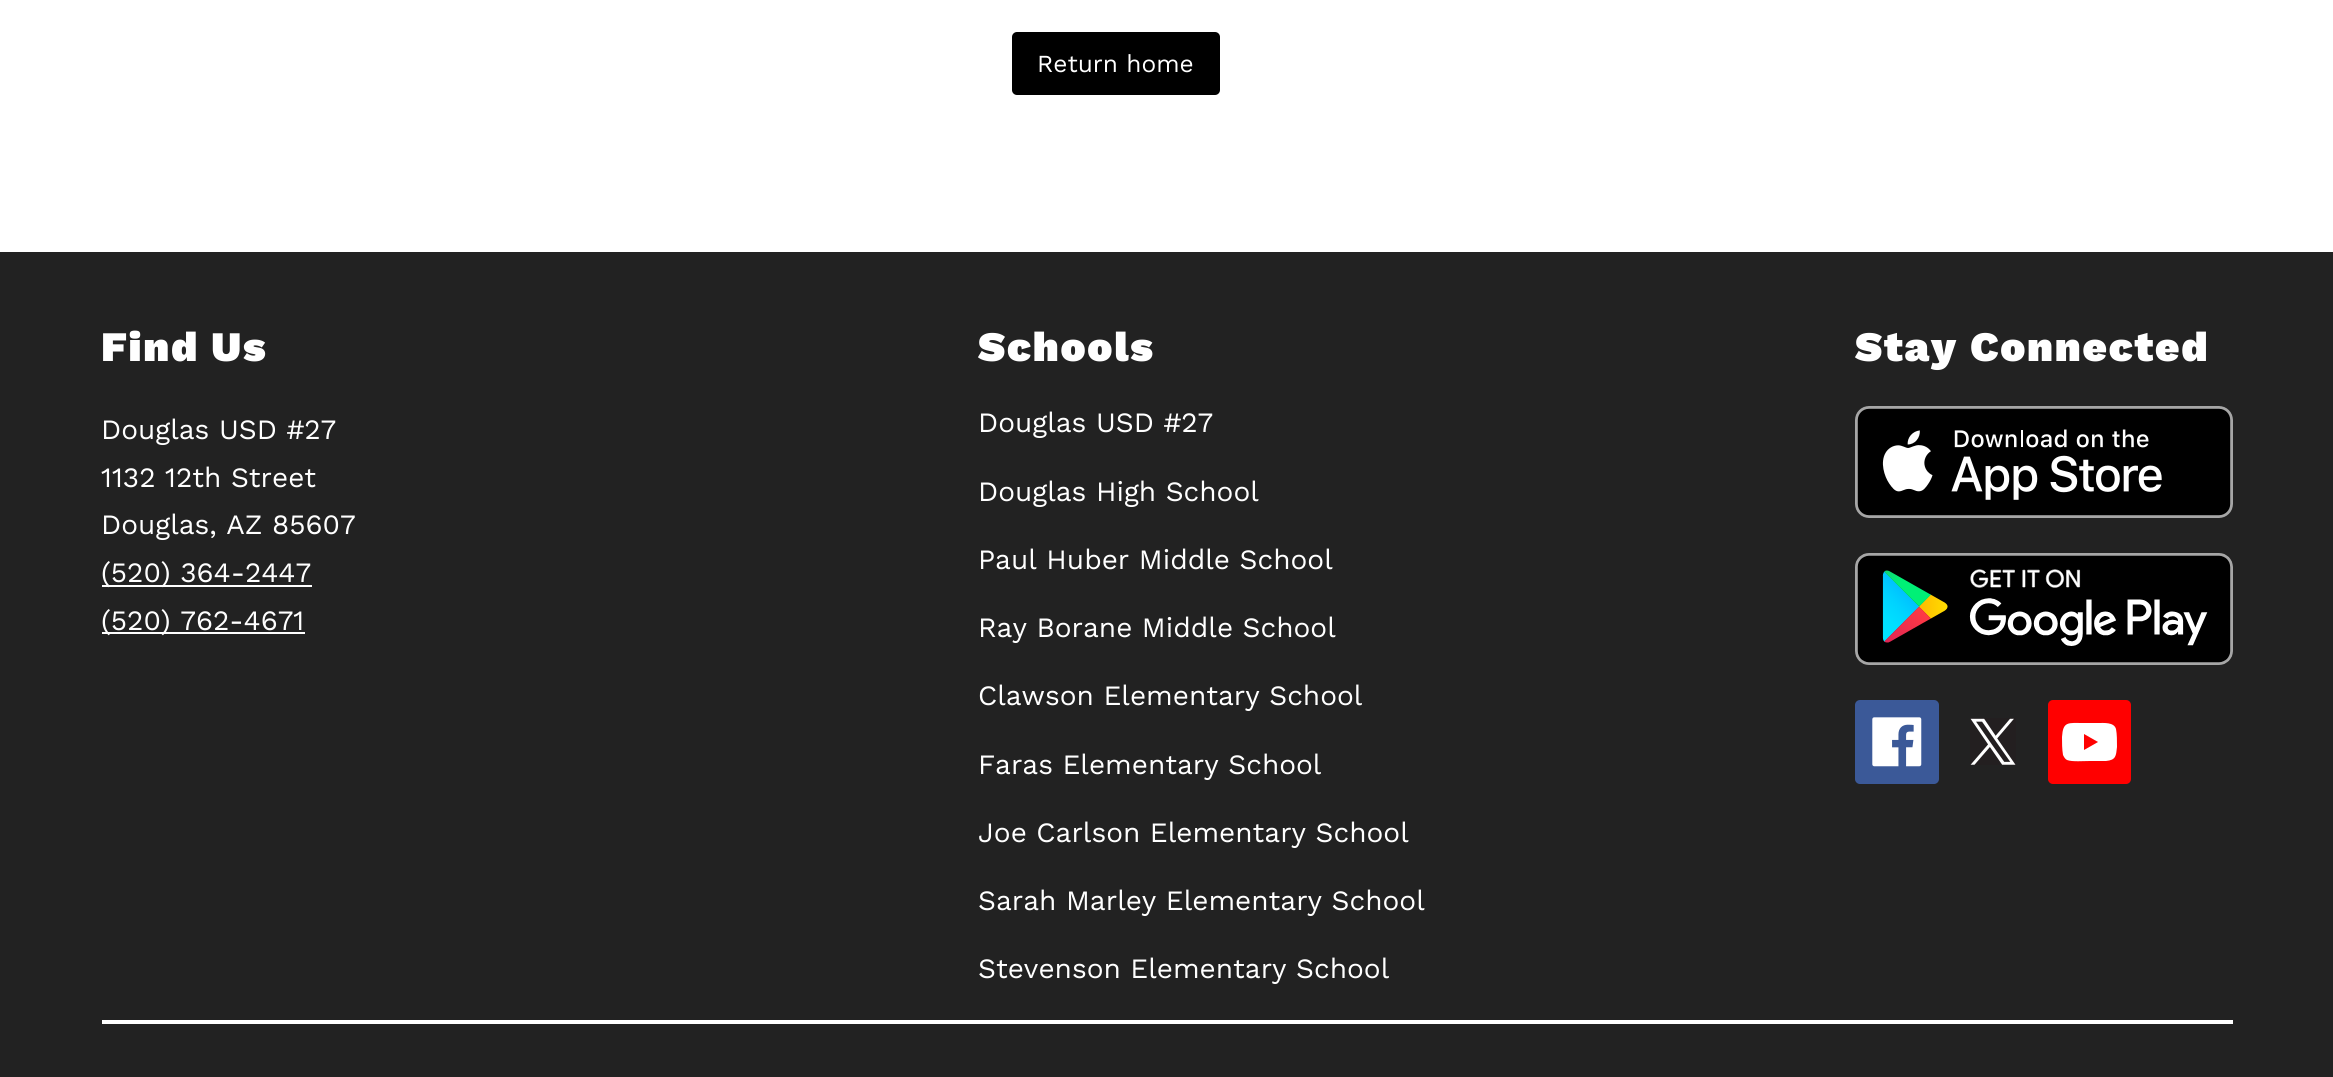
import math
import cairo


def use_color(cr, r, g, b):
  cr.set_source_rgb(r / 255, g / 255, b / 255)

def text(cr, x, y, s, family, size, color, bold=False, italic=False):
  cr.select_font_face(family, cairo.FONT_SLANT_ITALIC if italic else cairo.FONT_SLANT_NORMAL, cairo.FONT_WEIGHT_BOLD if bold else cairo.FONT_WEIGHT_NORMAL)
  cr.set_font_size(size)
  use_color(cr, *color)
  cr.move_to(x, y)
  cr.show_text(s)

def spaced_text(cr, x, y, s, letter, word):
  cr.move_to(x, y)
  for ch in s:
    cr.show_text(ch)
    cr.rel_move_to(letter + word * (ch == ' '), 0)

def box(cr, x, y, w, h, *color):
  use_color(cr, *color)
  cr.rectangle(x, y, w, h)
  cr.fill()

def round_rect(cr, x, y, w, h, r):
  cr.new_sub_path()
  for i, (u, v) in enumerate([(x + w - r, y + h - r), (x + r, y + h - r), (x + r, y + r), (x + w - r, y + r)]):
    cr.arc(u, v, r, i * math.pi / 2, (i + 1) * math.pi / 2)
  cr.close_path()

def picture(cr, path, x, y, w, h):
  cr.save()
  cr.set_source_surface(cairo.ImageSurface.create_from_png(path), x, y)
  cr.rectangle(x, y, w, h)
  cr.fill()
  cr.restore()

def draw(cr):
  use_color(cr, 255, 255, 255)
  cr.paint()
  use_color(cr, 0, 0, 0)
  round_rect(cr, 1012, 32, 208, 63, 5)
  cr.fill()
  box(cr, 0, 252, 2333, 825, 34, 34, 34)
  box(cr, 102, 585, 210, 2, 255, 255, 255)
  box(cr, 102, 632, 203, 2, 255, 255, 255)
  picture(cr, "img_01.png", 1855, 406, 378, 112)
  picture(cr, "img_02.png", 1855, 553, 378, 112)
  picture(cr, "img_03.png", 1855, 700, 84, 84)
  picture(cr, "img_04.png", 1970, 718, 46, 47)
  use_color(cr, 255, 0, 0)
  round_rect(cr, 2048, 700, 83, 84, 5)
  cr.fill()
  use_color(cr, 255, 255, 255)
  cr.new_path()
  cr.move_to(2116, 729)
  cr.curve_to(2114, 722, 2104, 723, 2098, 723)
  cr.line_to(2084, 723)
  cr.curve_to(2068, 723, 2063, 721, 2062, 737)
  cr.curve_to(2062, 743, 2062, 749, 2063, 755)
  cr.curve_to(2064, 757, 2065, 759, 2067, 760)
  cr.curve_to(2072, 762, 2084, 761, 2090, 761)
  cr.line_to(2106, 761)
  cr.curve_to(2116, 760, 2116, 756, 2117, 747)
  cr.curve_to(2117, 741, 2117, 734, 2116, 729)
  cr.close_path()
  cr.move_to(2084, 750)
  cr.line_to(2084, 734)
  cr.line_to(2098, 742)
  cr.close_path()
  cr.fill()
  box(cr, 102, 1020, 2131, 4, 255, 255, 255)
  text(cr, 1037, 72, "Return home", "Work Sans", 24.5, (255, 255, 255))
  cr.select_font_face("Work Sans Black")
  cr.set_font_size(42)
  spaced_text(cr, 101, 361, "Find Us", 1.75, 0)
  text(cr, 101, 439, "Douglas USD #27", "Work Sans", 28, (255, 255, 255))
  text(cr, 101, 487, "1132 12th Street", "Work Sans", 28, (255, 255, 255))
  text(cr, 101, 534, "Douglas, AZ 85607", "Work Sans", 28, (255, 255, 255))
  text(cr, 101, 582, "(520) 364-2447", "Work Sans", 28, (255, 255, 255))
  text(cr, 101, 630, "(520) 762-4671", "Work Sans", 28, (255, 255, 255))
  cr.select_font_face("Work Sans Black")
  cr.set_font_size(42)
  spaced_text(cr, 978, 361, "Schools", 1.75, 0)
  text(cr, 978, 432, "Douglas USD #27", "Work Sans", 28, (255, 255, 255))
  text(cr, 978, 501, "Douglas High School", "Work Sans", 28, (255, 255, 255))
  text(cr, 978, 569, "Paul Huber Middle School", "Work Sans", 28, (255, 255, 255))
  text(cr, 978, 637, "Ray Borane Middle School", "Work Sans", 28, (255, 255, 255))
  text(cr, 978, 705, "Clawson Elementary School", "Work Sans", 28, (255, 255, 255))
  text(cr, 978, 774, "Faras Elementary School", "Work Sans", 28, (255, 255, 255))
  text(cr, 978, 842, "Joe Carlson Elementary School", "Work Sans", 28, (255, 255, 255))
  text(cr, 978, 910, "Sarah Marley Elementary School", "Work Sans", 28, (255, 255, 255))
  text(cr, 978, 978, "Stevenson Elementary School", "Work Sans", 28, (255, 255, 255))
  cr.select_font_face("Work Sans Black")
  cr.set_font_size(42)
  spaced_text(cr, 1855, 361, "Stay Connected", 1.75, 0)


surface = cairo.ImageSurface(cairo.FORMAT_RGB24, 2333, 1077)
cr = cairo.Context(surface)
options = cairo.FontOptions()
options.set_hint_metrics(cairo.HINT_METRICS_OFF)
options.set_hint_style(cairo.HINT_STYLE_NONE)
cr.set_font_options(options)
cr.set_miter_limit(4)
draw(cr)
surface.write_to_png("out.png")
